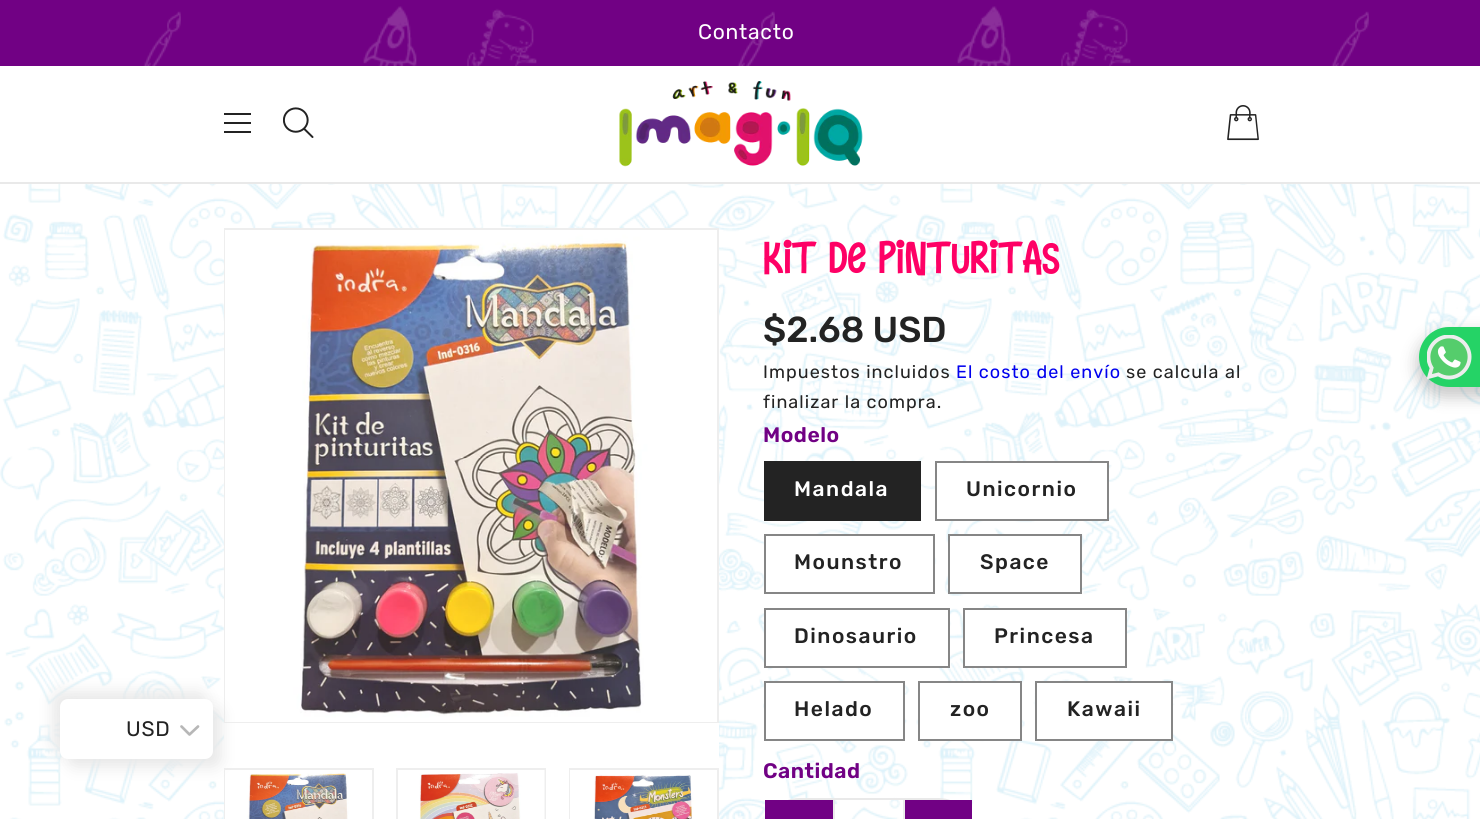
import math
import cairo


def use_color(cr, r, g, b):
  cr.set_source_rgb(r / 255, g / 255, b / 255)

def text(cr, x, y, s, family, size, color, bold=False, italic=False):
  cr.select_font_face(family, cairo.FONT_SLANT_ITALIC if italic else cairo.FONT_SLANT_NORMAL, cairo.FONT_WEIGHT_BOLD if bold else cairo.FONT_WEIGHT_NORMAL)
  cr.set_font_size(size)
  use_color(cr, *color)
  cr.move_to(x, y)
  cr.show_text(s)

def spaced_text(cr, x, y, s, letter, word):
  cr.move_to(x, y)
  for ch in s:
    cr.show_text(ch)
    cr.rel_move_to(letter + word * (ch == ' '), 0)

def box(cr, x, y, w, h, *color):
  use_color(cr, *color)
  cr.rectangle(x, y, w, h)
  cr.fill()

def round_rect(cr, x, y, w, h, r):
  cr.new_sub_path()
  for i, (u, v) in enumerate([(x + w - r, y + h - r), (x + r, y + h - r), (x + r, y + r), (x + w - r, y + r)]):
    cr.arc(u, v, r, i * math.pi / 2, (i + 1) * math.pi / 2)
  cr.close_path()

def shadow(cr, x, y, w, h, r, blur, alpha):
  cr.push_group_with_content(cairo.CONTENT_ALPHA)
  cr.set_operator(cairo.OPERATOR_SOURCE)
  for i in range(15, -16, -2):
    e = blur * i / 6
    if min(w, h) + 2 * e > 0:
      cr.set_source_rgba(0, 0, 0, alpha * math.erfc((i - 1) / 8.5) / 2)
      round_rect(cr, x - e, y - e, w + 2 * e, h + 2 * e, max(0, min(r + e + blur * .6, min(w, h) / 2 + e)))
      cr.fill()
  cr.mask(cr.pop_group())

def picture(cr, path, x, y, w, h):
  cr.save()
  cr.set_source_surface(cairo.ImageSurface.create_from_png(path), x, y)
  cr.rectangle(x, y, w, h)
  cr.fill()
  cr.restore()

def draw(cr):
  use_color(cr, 255, 255, 255)
  cr.paint()
  picture(cr, "img_01.png", 0, 184, 1480, 635)
  box(cr, 0, 0, 1480, 66, 113, 1, 132)
  picture(cr, "img_02.png", 143, 6, 1226, 60)
  box(cr, 0, 182, 1480, 2, 233, 233, 233)
  box(cr, 224, 113, 27, 2, 35, 35, 35)
  box(cr, 224, 122, 27, 2, 35, 35, 35)
  box(cr, 224, 131, 27, 2, 35, 35, 35)
  picture(cr, "img_03.png", 283, 107, 31, 31)
  picture(cr, "img_04.png", 619, 81, 244, 86)
  picture(cr, "img_05.png", 1227, 105, 32, 36)
  box(cr, 224, 723, 495, 96, 255, 255, 255)
  cr.rectangle(225, 229, 493, 493)
  use_color(cr, 238, 238, 238)
  cr.stroke()
  picture(cr, "img_06.png", 225, 230, 492, 492)
  cr.rectangle(225, 769, 148, 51)
  cr.stroke()
  picture(cr, "img_07.png", 225, 770, 147, 49)
  use_color(cr, 232, 232, 232)
  shadow(cr, 53, 692, 153, 60, 8, 7.5, 1)
  shadow(cr, 68, 707, 153, 60, 8, 7.5, 1)
  use_color(cr, 255, 255, 255)
  round_rect(cr, 60, 699, 153, 60, 8)
  cr.fill()
  cr.new_path()
  cr.move_to(181.5, 726.5)
  cr.line_to(189.5, 734.5)
  cr.line_to(198, 726.5)
  use_color(cr, 183, 183, 183)
  cr.set_line_width(2.7)
  cr.set_line_cap(cairo.LINE_CAP_ROUND)
  cr.set_line_join(cairo.LINE_JOIN_ROUND)
  cr.stroke()
  cr.rectangle(397, 769, 148, 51)
  use_color(cr, 238, 238, 238)
  cr.set_line_width(2)
  cr.set_line_cap(cairo.LINE_CAP_BUTT)
  cr.set_line_join(cairo.LINE_JOIN_MITER)
  cr.stroke()
  picture(cr, "img_08.png", 398, 770, 147, 49)
  cr.rectangle(570, 769, 148, 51)
  cr.stroke()
  picture(cr, "img_09.png", 570, 770, 147, 49)
  picture(cr, "img_10.png", 764, 239, 296, 37)
  box(cr, 764, 461, 157, 60, 35, 35, 35)
  use_color(cr, 255, 255, 255)
  cr.rectangle(936, 462, 172, 58)
  cr.fill_preserve()
  use_color(cr, 134, 134, 134)
  cr.stroke()
  box(cr, 766, 536, 167, 45, 255, 255, 255)
  cr.rectangle(765, 535, 169, 58)
  use_color(cr, 134, 134, 134)
  cr.stroke()
  use_color(cr, 255, 255, 255)
  cr.rectangle(949, 535, 132, 58)
  cr.fill_preserve()
  use_color(cr, 134, 134, 134)
  cr.stroke()
  use_color(cr, 255, 255, 255)
  cr.rectangle(765, 609, 184, 58)
  cr.fill_preserve()
  use_color(cr, 134, 134, 134)
  cr.stroke()
  use_color(cr, 255, 255, 255)
  cr.rectangle(964, 609, 162, 58)
  cr.fill_preserve()
  use_color(cr, 134, 134, 134)
  cr.stroke()
  use_color(cr, 255, 255, 255)
  cr.rectangle(765, 682, 139, 58)
  cr.fill_preserve()
  use_color(cr, 134, 134, 134)
  cr.stroke()
  use_color(cr, 255, 255, 255)
  cr.rectangle(919, 682, 102, 58)
  cr.fill_preserve()
  use_color(cr, 134, 134, 134)
  cr.stroke()
  use_color(cr, 255, 255, 255)
  cr.rectangle(1036, 682, 136, 58)
  cr.fill_preserve()
  use_color(cr, 134, 134, 134)
  cr.stroke()
  round_rect(cr, 765, 799, 208, 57, 34.5)
  use_color(cr, 233, 233, 233)
  cr.stroke()
  box(cr, 765, 800, 68, 19, 113, 1, 132)
  box(cr, 903, 800, 2, 19, 236, 236, 236)
  cr.set_source_rgba(0.914, 0.914, 0.914, 0.85)
  cr.rectangle(833, 800, 2, 19)
  cr.fill()
  box(cr, 905, 800, 67, 19, 113, 1, 132)
  use_color(cr, 0, 0, 0)
  shadow(cr, 1416, 332, 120, 66, 33, 7.5, 0.2)
  use_color(cr, 37, 211, 102)
  cr.new_path()
  cr.move_to(1449, 327)
  cr.line_to(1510, 327)
  cr.line_to(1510, 387)
  cr.line_to(1449, 387)
  cr.curve_to(1432.5, 387, 1419, 373.5, 1419, 357)
  cr.curve_to(1419, 340.5, 1432.5, 327, 1449, 327)
  cr.close_path()
  cr.fill()
  picture(cr, "img_11.png", 1427, 335, 45, 45)
  cr.select_font_face("Rubik")
  cr.set_font_size(21)
  use_color(cr, 255, 255, 255)
  spaced_text(cr, 698, 39, "Contacto", 0.75, 0)
  use_color(cr, 35, 35, 35)
  spaced_text(cr, 126, 736, "USD", 0.75, 0)
  text(cr, 763, 342, "$2.68 USD", "Rubik Medium", 36, (35, 35, 35))
  cr.select_font_face("Rubik")
  cr.set_font_size(18)
  spaced_text(cr, 763, 378, "Impuestos incluidos", 1.05, 0)
  use_color(cr, 0, 0, 238)
  spaced_text(cr, 956, 378, "El costo del envío", 1.05, 0)
  use_color(cr, 35, 35, 35)
  spaced_text(cr, 1126, 378, "se calcula al", 1.05, 0)
  spaced_text(cr, 763, 408, "finalizar la compra.", 1.05, 0)
  cr.select_font_face("Rubik SemiBold")
  cr.set_font_size(21)
  use_color(cr, 113, 1, 132)
  spaced_text(cr, 763, 442, "Modelo", 0.5, 0)
  cr.select_font_face("Rubik Medium")
  use_color(cr, 255, 255, 255)
  spaced_text(cr, 794, 496, "Mandala", 1.5, 0)
  use_color(cr, 35, 35, 35)
  spaced_text(cr, 966, 496, "Unicornio", 1.5, 0)
  spaced_text(cr, 794, 569, "Mounstro", 1.5, 0)
  spaced_text(cr, 980, 569, "Space", 1.5, 0)
  spaced_text(cr, 794, 643, "Dinosaurio", 1.5, 0)
  spaced_text(cr, 994, 643, "Princesa", 1.5, 0)
  spaced_text(cr, 794, 716, "Helado", 1.5, 0)
  spaced_text(cr, 950, 716, "zoo", 1.5, 0)
  spaced_text(cr, 1067, 716, "Kawaii", 1.5, 0)
  cr.select_font_face("Rubik SemiBold")
  use_color(cr, 113, 1, 132)
  spaced_text(cr, 763, 778, "Cantidad", 0.5, 0)


surface = cairo.ImageSurface(cairo.FORMAT_RGB24, 1480, 819)
cr = cairo.Context(surface)
options = cairo.FontOptions()
options.set_hint_metrics(cairo.HINT_METRICS_OFF)
options.set_hint_style(cairo.HINT_STYLE_NONE)
cr.set_font_options(options)
cr.set_miter_limit(4)
draw(cr)
surface.write_to_png("out.png")
